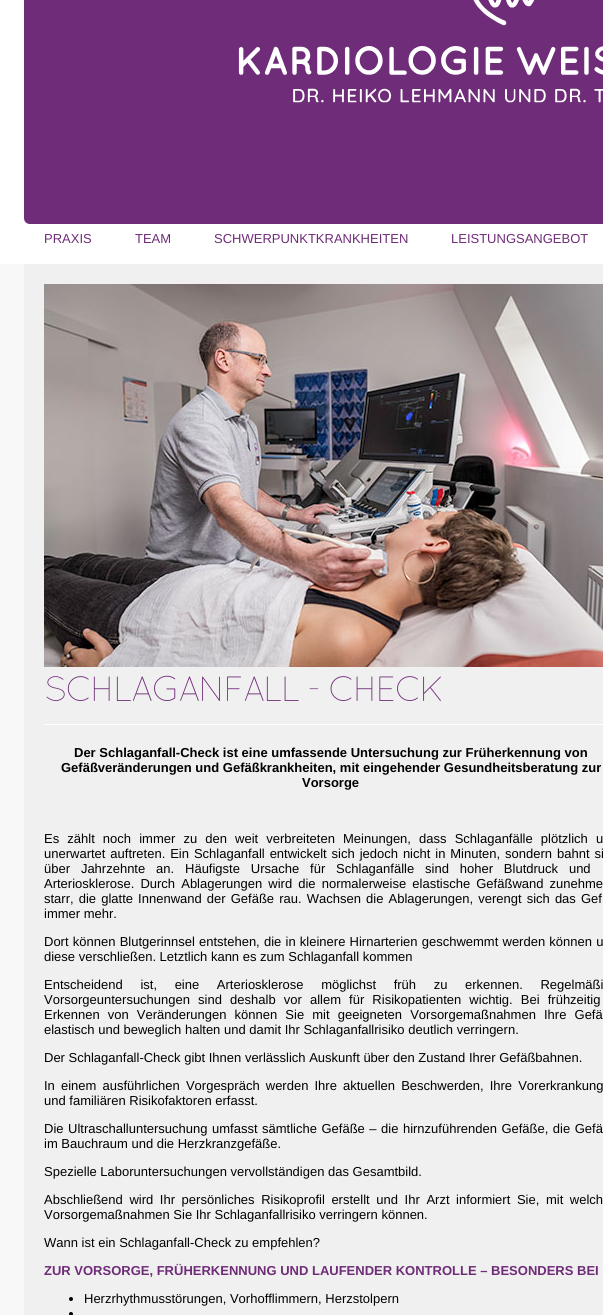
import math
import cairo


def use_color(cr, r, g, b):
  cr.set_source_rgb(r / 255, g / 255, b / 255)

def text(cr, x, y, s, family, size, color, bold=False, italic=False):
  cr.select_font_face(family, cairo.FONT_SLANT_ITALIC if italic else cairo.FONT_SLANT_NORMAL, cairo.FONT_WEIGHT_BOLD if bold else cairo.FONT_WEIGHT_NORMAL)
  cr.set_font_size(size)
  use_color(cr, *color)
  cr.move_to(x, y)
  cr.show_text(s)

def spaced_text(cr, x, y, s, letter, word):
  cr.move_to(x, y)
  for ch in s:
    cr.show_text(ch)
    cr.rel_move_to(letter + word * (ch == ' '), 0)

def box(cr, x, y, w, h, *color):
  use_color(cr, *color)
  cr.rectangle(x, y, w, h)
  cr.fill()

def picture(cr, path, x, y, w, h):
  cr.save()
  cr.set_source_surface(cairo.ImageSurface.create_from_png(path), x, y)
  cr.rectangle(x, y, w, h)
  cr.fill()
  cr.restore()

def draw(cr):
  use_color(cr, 248, 248, 248)
  cr.paint()
  box(cr, 0, 0, 603, 264, 255, 255, 255)
  use_color(cr, 111, 44, 120)
  cr.new_path()
  cr.move_to(24, -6)
  cr.line_to(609, -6)
  cr.line_to(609, 218)
  cr.curve_to(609, 221.5, 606.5, 224, 603, 224)
  cr.line_to(30, 224)
  cr.curve_to(26.5, 224, 24, 221.5, 24, 218)
  cr.close_path()
  cr.fill()
  picture(cr, "img_01.png", 238, 0, 365, 103)
  box(cr, 24, 264, 579, 1051, 240, 240, 240)
  picture(cr, "img_02.png", 44, 284, 559, 383)
  box(cr, 44, 724, 559, 1, 255, 255, 255)
  use_color(cr, 0, 0, 0)
  cr.arc(71, 1299, 2, 0, 2 * math.pi)
  cr.fill()
  cr.arc(71, 1314, 2, 0, 2 * math.pi)
  cr.fill()
  text(cr, 44, 243, "PRAXIS", "Liberation Sans", 13, (111, 44, 120))
  text(cr, 135, 243, "TEAM", "Liberation Sans", 13, (111, 44, 120))
  text(cr, 214, 243, "SCHWERPUNKTKRANKHEITEN", "Liberation Sans", 13, (111, 44, 120))
  text(cr, 451, 243, "LEISTUNGSANGEBOT", "Liberation Sans", 13, (111, 44, 120))
  cr.select_font_face("Quicksand Light")
  cr.set_font_size(35)
  spaced_text(cr, 44, 701, "SCHLAGANFALL - CHECK", -2, 0)
  text(cr, 74, 757, "Der Schlaganfall-Check ist eine umfassende Untersuchung zur Früherkennung von", "Liberation Sans", 13, (0, 0, 0), bold=True)
  text(cr, 61, 772, "Gefäßveränderungen und Gefäßkrankheiten, mit eingehender Gesundheitsberatung zur", "Liberation Sans", 13, (0, 0, 0), bold=True)
  text(cr, 302, 787, "Vorsorge", "Liberation Sans", 13, (0, 0, 0), bold=True)
  cr.select_font_face("Liberation Sans")
  spaced_text(cr, 44, 843, "Es zählt noch immer zu den weit verbreiteten Meinungen, dass Schlaganfälle plötzlich u", 0, 4.5)
  spaced_text(cr, 44, 858, "unerwartet auftreten. Ein Schlaganfall entwickelt sich jedoch nicht in Minuten, sondern bahnt si", 0, 1.3)
  spaced_text(cr, 44, 873, "über Jahrzehnte an. Häufigste Ursache für Schlaganfälle sind hoher Blutdruck und", 0, 7.25)
  spaced_text(cr, 44, 888, "Arteriosklerose. Durch Ablagerungen wird die normalerweise elastische Gefäßwand zunehme", 0, 2.5)
  spaced_text(cr, 44, 903, "starr, die glatte Innenwand der Gefäße rau. Wachsen die Ablagerungen, verengt sich das Gef", 0, 1.5)
  text(cr, 44, 918, "immer mehr.", "Liberation Sans", 13, (0, 0, 0))
  spaced_text(cr, 44, 946, "Dort können Blutgerinnsel entstehen, die in kleinere Hirnarterien geschwemmt werden können u", 0, 0.6)
  text(cr, 44, 961, "diese verschließen. Letztlich kann es zum Schlaganfall kommen", "Liberation Sans", 13, (0, 0, 0))
  spaced_text(cr, 44, 989, "Entscheidend ist, eine Arteriosklerose möglichst früh zu erkennen. Regelmäßi", 0, 14)
  spaced_text(cr, 44, 1004, "Vorsorgeuntersuchungen sind deshalb vor allem für Risikopatienten wichtig. Bei frühzeitig", 0, 4.5)
  spaced_text(cr, 44, 1019, "Erkennen von Veränderungen können Sie mit geeigneten Vorsorgemaßnahmen Ihre Gefä", 0, 4.5)
  text(cr, 44, 1034, "elastisch und beweglich halten und damit Ihr Schlaganfallrisiko deutlich verringern.", "Liberation Sans", 13, (0, 0, 0))
  text(cr, 44, 1062, "Der Schlaganfall-Check gibt Ihnen verlässlich Auskunft über den Zustand Ihrer Gefäßbahnen.", "Liberation Sans", 13, (0, 0, 0))
  spaced_text(cr, 44, 1090, "In einem ausführlichen Vorgespräch werden Ihre aktuellen Beschwerden, Ihre Vorerkrankung", 0, 2.5)
  text(cr, 44, 1105, "und familiären Risikofaktoren erfasst.", "Liberation Sans", 13, (0, 0, 0))
  spaced_text(cr, 44, 1133, "Die Ultraschalluntersuchung umfasst sämtliche Gefäße – die hirnzuführenden Gefäße, die Gefä", 0, 0.9)
  text(cr, 44, 1148, "im Bauchraum und die Herzkranzgefäße.", "Liberation Sans", 13, (0, 0, 0))
  text(cr, 44, 1176, "Spezielle Laboruntersuchungen vervollständigen das Gesamtbild.", "Liberation Sans", 13, (0, 0, 0))
  spaced_text(cr, 44, 1204, "Abschließend wird Ihr persönliches Risikoprofil erstellt und Ihr Arzt informiert Sie, mit welch", 0, 3)
  text(cr, 44, 1219, "Vorsorgemaßnahmen Sie Ihr Schlaganfallrisiko verringern können.", "Liberation Sans", 13, (0, 0, 0))
  text(cr, 44, 1247, "Wann ist ein Schlaganfall-Check zu empfehlen?", "Liberation Sans", 13, (0, 0, 0))
  text(cr, 44, 1275, "ZUR VORSORGE, FRÜHERKENNUNG UND LAUFENDER KONTROLLE – BESONDERS BEI", "Liberation Sans", 13, (111, 44, 120), bold=True)
  text(cr, 84, 1303, "Herzrhythmusstörungen, Vorhofflimmern, Herzstolpern", "Liberation Sans", 13, (0, 0, 0))


surface = cairo.ImageSurface(cairo.FORMAT_RGB24, 603, 1315)
cr = cairo.Context(surface)
options = cairo.FontOptions()
options.set_hint_metrics(cairo.HINT_METRICS_OFF)
options.set_hint_style(cairo.HINT_STYLE_NONE)
cr.set_font_options(options)
cr.set_miter_limit(4)
draw(cr)
surface.write_to_png("out.png")
